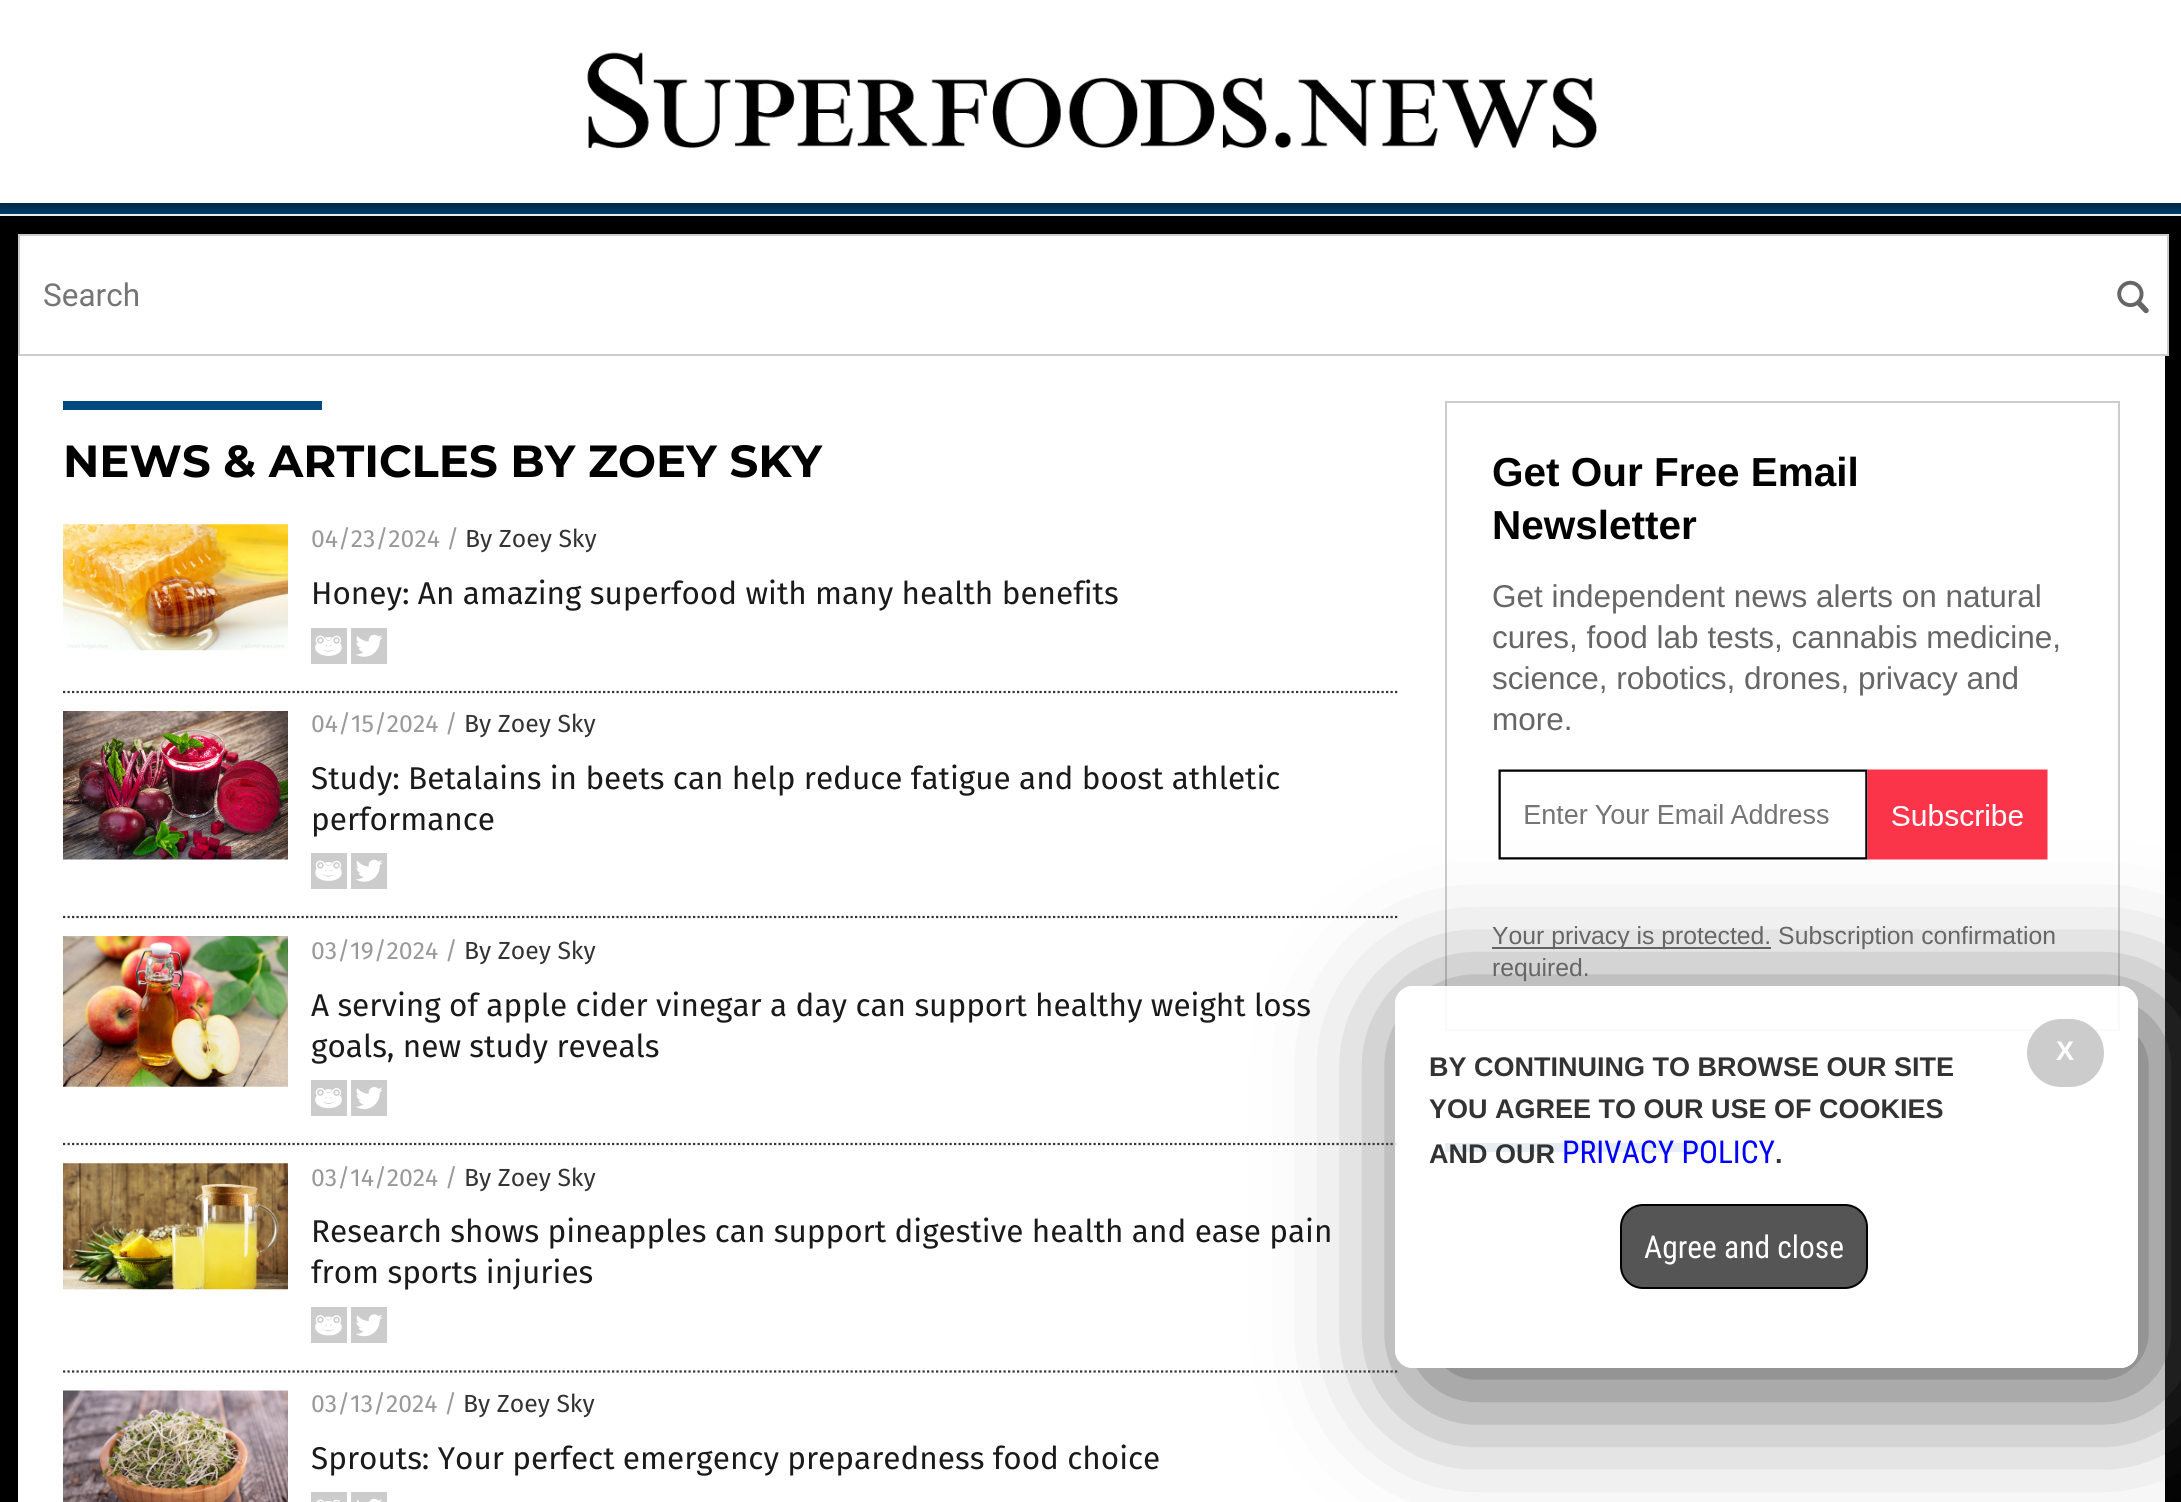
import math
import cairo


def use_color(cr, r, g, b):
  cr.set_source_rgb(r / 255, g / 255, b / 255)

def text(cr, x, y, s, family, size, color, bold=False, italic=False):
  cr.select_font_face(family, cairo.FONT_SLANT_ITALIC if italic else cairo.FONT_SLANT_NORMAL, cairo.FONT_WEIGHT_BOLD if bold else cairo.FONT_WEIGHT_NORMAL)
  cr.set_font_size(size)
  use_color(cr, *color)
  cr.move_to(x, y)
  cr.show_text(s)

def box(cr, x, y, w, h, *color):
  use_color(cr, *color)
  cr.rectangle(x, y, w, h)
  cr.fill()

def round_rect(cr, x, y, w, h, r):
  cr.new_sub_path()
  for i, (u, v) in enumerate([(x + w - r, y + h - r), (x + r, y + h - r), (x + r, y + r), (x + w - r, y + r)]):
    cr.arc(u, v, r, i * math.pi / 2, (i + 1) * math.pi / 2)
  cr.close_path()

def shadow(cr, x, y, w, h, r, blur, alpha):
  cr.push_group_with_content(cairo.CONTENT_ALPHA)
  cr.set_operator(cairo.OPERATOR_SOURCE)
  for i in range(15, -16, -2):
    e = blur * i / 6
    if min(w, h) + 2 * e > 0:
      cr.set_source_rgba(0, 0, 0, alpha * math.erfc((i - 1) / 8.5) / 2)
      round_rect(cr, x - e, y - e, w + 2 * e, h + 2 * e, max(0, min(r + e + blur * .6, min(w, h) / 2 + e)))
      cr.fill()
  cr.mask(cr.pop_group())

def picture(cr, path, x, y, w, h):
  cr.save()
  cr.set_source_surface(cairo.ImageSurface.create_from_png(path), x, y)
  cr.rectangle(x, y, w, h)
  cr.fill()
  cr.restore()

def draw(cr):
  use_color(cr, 0, 74, 128)
  cr.paint()
  use_color(cr, 0, 0, 0)
  shadow(cr, -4, -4, 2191, 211, 0, 11, 0.75)
  box(cr, 0, 0, 2181, 203, 255, 255, 255)
  picture(cr, "img_01.png", 587, 52, 1010, 97)
  box(cr, 0, 216, 2181, 1286, 0, 0, 0)
  box(cr, 0, 214, 2181, 2, 236, 236, 236)
  use_color(cr, 255, 255, 255)
  cr.rectangle(19, 235, 2149, 120)
  cr.fill_preserve()
  use_color(cr, 204, 204, 204)
  cr.stroke()
  picture(cr, "img_02.png", 2117, 280, 32, 34)
  box(cr, 18, 356, 2147, 1146, 255, 255, 255)
  box(cr, 63, 401, 259, 9, 0, 74, 128)
  cr.new_path()
  cr.move_to(63, 692)
  cr.line_to(1399.5, 692)
  use_color(cr, 52, 52, 52)
  cr.set_line_width(2.2)
  cr.set_dash([2.25, 2.25])
  cr.stroke()
  picture(cr, "img_03.png", 63, 524, 225, 127)
  picture(cr, "img_04.png", 311, 628, 36, 36)
  picture(cr, "img_05.png", 351, 628, 36, 36)
  cr.new_path()
  cr.move_to(63, 917)
  cr.line_to(1399.5, 917)
  cr.stroke()
  picture(cr, "img_06.png", 63, 711, 225, 149)
  picture(cr, "img_04.png", 311, 853, 36, 36)
  picture(cr, "img_05.png", 351, 853, 36, 36)
  cr.new_path()
  cr.move_to(63, 1144)
  cr.line_to(1399.5, 1144)
  cr.stroke()
  picture(cr, "img_07.png", 63, 936, 225, 151)
  picture(cr, "img_08.png", 311, 1080, 36, 36)
  picture(cr, "img_09.png", 351, 1080, 36, 36)
  cr.new_path()
  cr.move_to(63, 1371.5)
  cr.line_to(1399.5, 1371.5)
  cr.stroke()
  picture(cr, "img_10.png", 63, 1163, 225, 127)
  picture(cr, "img_11.png", 311, 1307, 36, 36)
  picture(cr, "img_12.png", 351, 1307, 36, 36)
  picture(cr, "img_13.png", 63, 1390, 225, 112)
  picture(cr, "img_14.png", 311, 1492, 36, 10)
  picture(cr, "img_15.png", 351, 1492, 36, 10)
  cr.rectangle(1446, 402, 673, 628)
  use_color(cr, 204, 204, 204)
  cr.set_line_width(2)
  cr.set_dash([])
  cr.stroke()
  picture(cr, "img_16.png", 1498, 769, 550, 91)
  box(cr, 1492, 947, 279, 2, 102, 102, 102)
  box(cr, 1445, 1143, 258, 9, 0, 74, 128)
  cr.save()
  cr.set_fill_rule(cairo.FILL_RULE_EVEN_ODD)
  cr.new_path()
  cr.move_to(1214, 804)
  cr.line_to(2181, 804)
  cr.line_to(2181, 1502)
  cr.line_to(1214, 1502)
  cr.close_path()
  cr.move_to(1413, 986)
  cr.line_to(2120, 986)
  cr.curve_to(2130, 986, 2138, 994, 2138, 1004)
  cr.line_to(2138, 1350)
  cr.curve_to(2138, 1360, 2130, 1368, 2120, 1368)
  cr.line_to(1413, 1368)
  cr.curve_to(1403, 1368, 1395, 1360, 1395, 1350)
  cr.line_to(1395, 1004)
  cr.curve_to(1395, 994, 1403, 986, 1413, 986)
  cr.close_path()
  cr.clip()
  use_color(cr, 85, 85, 85)
  shadow(cr, 1418, 1008, 742, 383, 18, 67.5, 1)
  cr.restore()
  cr.set_source_rgba(1, 1, 1, 0.9)
  round_rect(cr, 1395, 986, 743, 382, 18)
  cr.fill()
  use_color(cr, 204, 204, 204)
  round_rect(cr, 2027, 1019, 77, 68, 34)
  cr.fill()
  use_color(cr, 85, 85, 85)
  round_rect(cr, 1621, 1205, 246, 83, 22)
  cr.fill_preserve()
  use_color(cr, 0, 0, 0)
  cr.stroke()
  text(cr, 43, 306, "Search", "Roboto", 31.5, (117, 117, 117))
  text(cr, 63, 477, "NEWS & ARTICLES BY ZOEY SKY", "Montserrat", 45, (0, 0, 0), bold=True)
  text(cr, 311, 547, "04/23/2024 /", "Fira Sans", 24.75, (153, 153, 153))
  text(cr, 465, 547, "By Zoey Sky", "Fira Sans", 24.75, (51, 51, 51))
  text(cr, 311, 604, "Honey: An amazing superfood with many health benefits", "Fira Sans", 31.5, (26, 26, 26))
  text(cr, 311, 732, "04/15/2024 /", "Fira Sans", 24.75, (153, 153, 153))
  text(cr, 464, 732, "By Zoey Sky", "Fira Sans", 24.75, (51, 51, 51))
  text(cr, 311, 789, "Study: Betalains in beets can help reduce fatigue and boost athletic", "Fira Sans", 31.5, (26, 26, 26))
  text(cr, 311, 830, "performance", "Fira Sans", 31.5, (26, 26, 26))
  text(cr, 311, 959, "03/19/2024 /", "Fira Sans", 24.75, (153, 153, 153))
  text(cr, 464, 959, "By Zoey Sky", "Fira Sans", 24.75, (51, 51, 51))
  text(cr, 311, 1016, "A serving of apple cider vinegar a day can support healthy weight loss", "Fira Sans", 31.5, (26, 26, 26))
  text(cr, 311, 1057, "goals, new study reveals", "Fira Sans", 31.5, (26, 26, 26))
  text(cr, 311, 1186, "03/14/2024 /", "Fira Sans", 24.75, (153, 153, 153))
  text(cr, 464, 1186, "By Zoey Sky", "Fira Sans", 24.75, (51, 51, 51))
  text(cr, 311, 1242, "Research shows pineapples can support digestive health and ease pain", "Fira Sans", 31.5, (26, 26, 26))
  text(cr, 311, 1283, "from sports injuries", "Fira Sans", 31.5, (26, 26, 26))
  text(cr, 311, 1412, "03/13/2024 /", "Fira Sans", 24.75, (153, 153, 153))
  text(cr, 463, 1412, "By Zoey Sky", "Fira Sans", 24.75, (51, 51, 51))
  text(cr, 311, 1469, "Sprouts: Your perfect emergency preparedness food choice", "Fira Sans", 31.5, (26, 26, 26))
  text(cr, 1492, 486, "Get Our Free Email", "Liberation Sans", 40.5, (0, 0, 0), bold=True)
  text(cr, 1492, 539, "Newsletter", "Liberation Sans", 40.5, (0, 0, 0), bold=True)
  text(cr, 1492, 607, "Get independent news alerts on natural", "Liberation Sans", 31.5, (102, 102, 102))
  text(cr, 1492, 648, "cures, food lab tests, cannabis medicine,", "Liberation Sans", 31.5, (102, 102, 102))
  text(cr, 1492, 689, "science, robotics, drones, privacy and", "Liberation Sans", 31.5, (102, 102, 102))
  text(cr, 1492, 730, "more.", "Liberation Sans", 31.5, (102, 102, 102))
  text(cr, 1492, 944, "Your privacy is protected. Subscription confirmation", "Liberation Sans", 24.75, (102, 102, 102))
  text(cr, 1492, 976, "required.", "Liberation Sans", 24.75, (102, 102, 102))
  text(cr, 2056, 1060, "X", "Liberation Sans", 27, (255, 255, 255), bold=True)
  text(cr, 1429, 1076, "BY CONTINUING TO BROWSE OUR SITE", "Liberation Sans", 27, (51, 51, 51), bold=True)
  text(cr, 1429, 1118, "YOU AGREE TO OUR USE OF COOKIES", "Liberation Sans", 27, (51, 51, 51), bold=True)
  text(cr, 1429, 1163, "AND OUR", "Liberation Sans", 27, (51, 51, 51), bold=True)
  text(cr, 1562, 1163, "PRIVACY POLICY", "Roboto Condensed", 31.5, (0, 0, 255))
  text(cr, 1775, 1163, ".", "Liberation Sans", 27, (51, 51, 51), bold=True)
  text(cr, 1644, 1258, "Agree and close", "Roboto Condensed", 31.5, (255, 255, 255))


surface = cairo.ImageSurface(cairo.FORMAT_RGB24, 2181, 1502)
cr = cairo.Context(surface)
options = cairo.FontOptions()
options.set_hint_metrics(cairo.HINT_METRICS_OFF)
options.set_hint_style(cairo.HINT_STYLE_NONE)
cr.set_font_options(options)
cr.set_miter_limit(4)
draw(cr)
surface.write_to_png("out.png")
